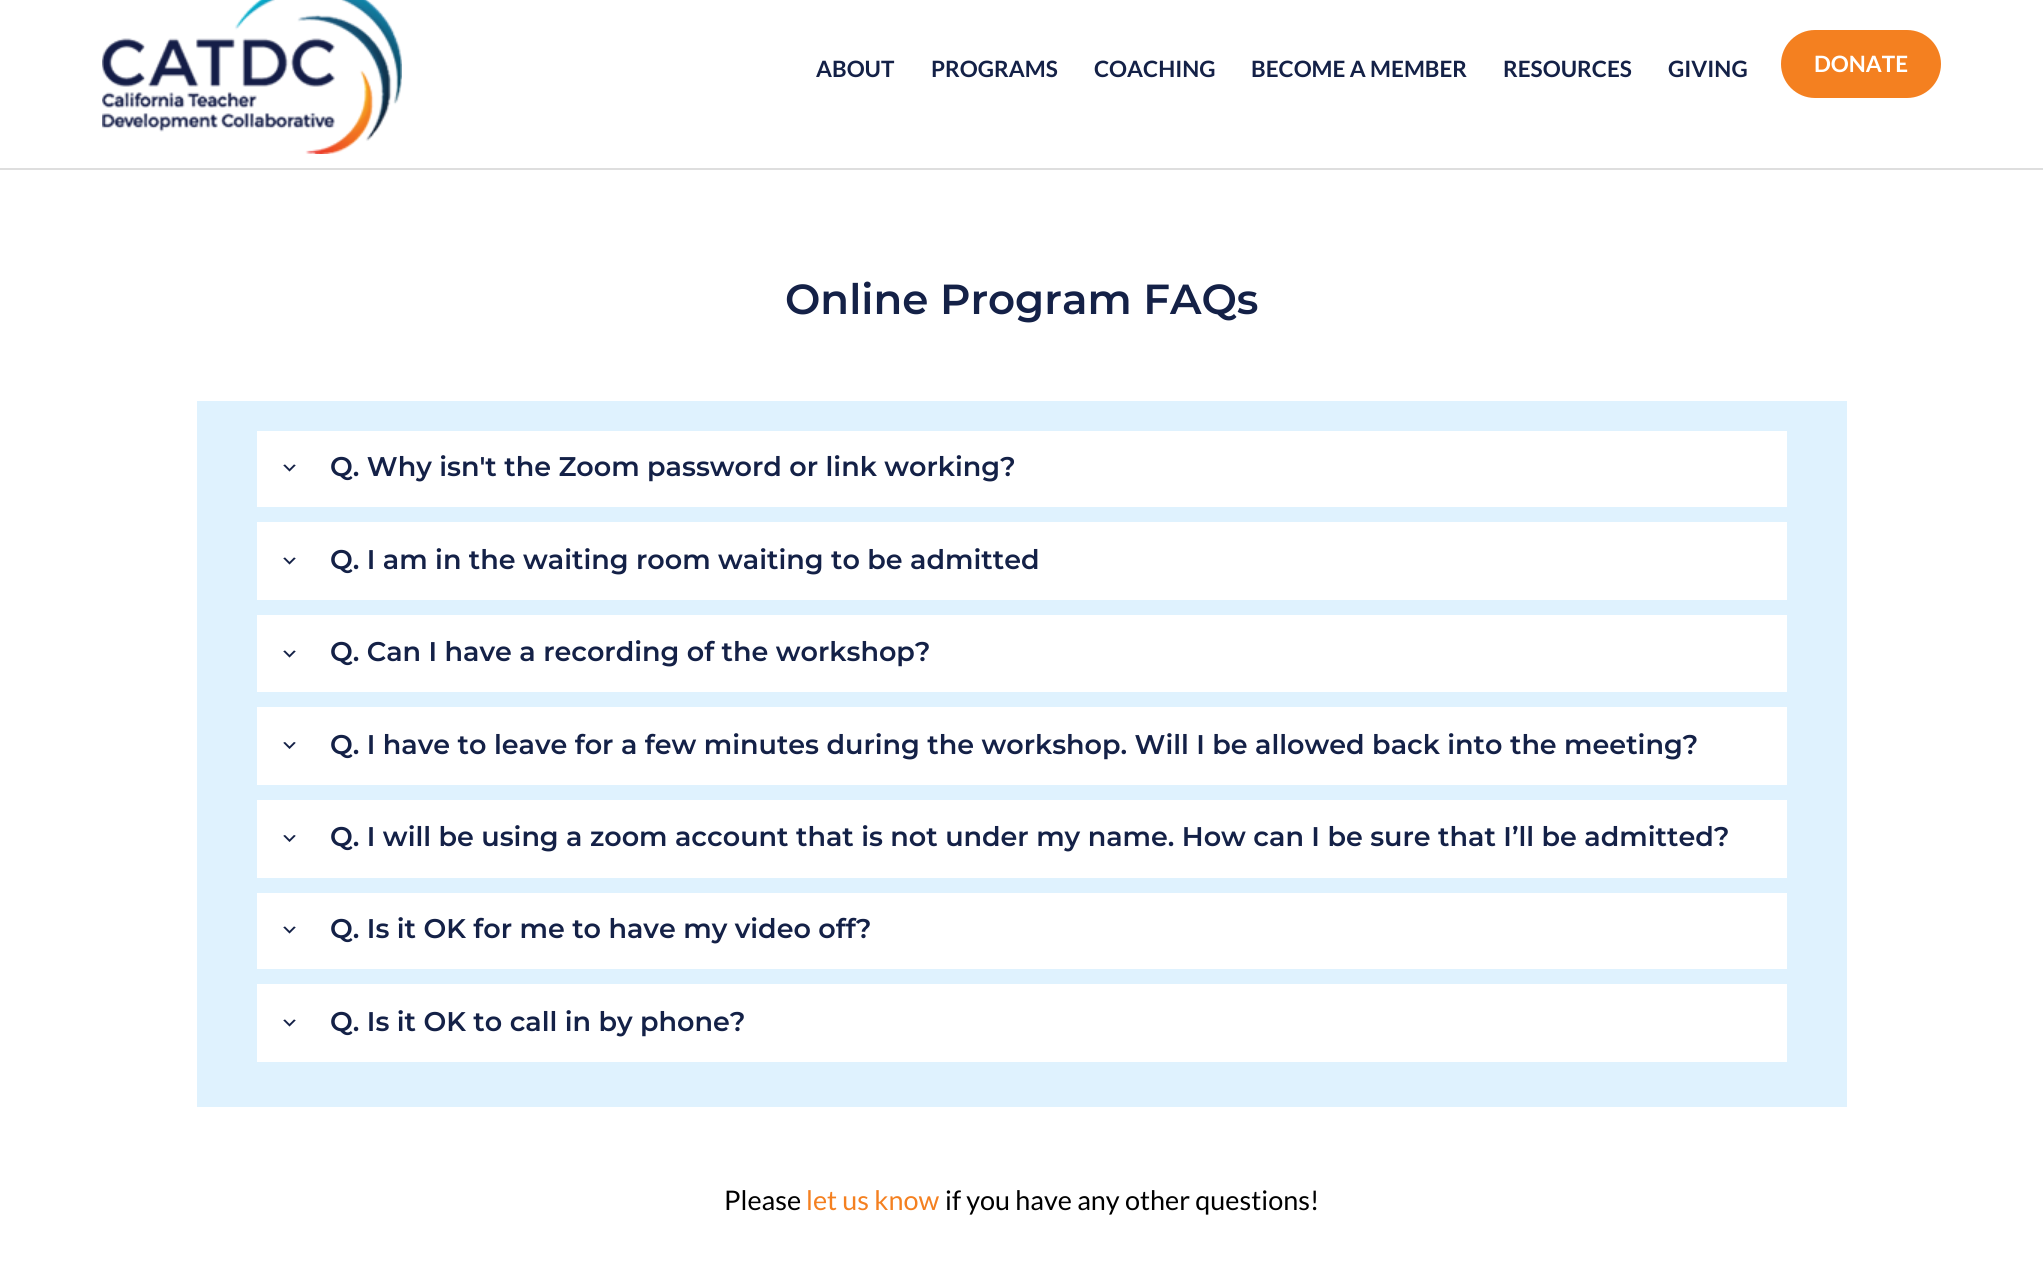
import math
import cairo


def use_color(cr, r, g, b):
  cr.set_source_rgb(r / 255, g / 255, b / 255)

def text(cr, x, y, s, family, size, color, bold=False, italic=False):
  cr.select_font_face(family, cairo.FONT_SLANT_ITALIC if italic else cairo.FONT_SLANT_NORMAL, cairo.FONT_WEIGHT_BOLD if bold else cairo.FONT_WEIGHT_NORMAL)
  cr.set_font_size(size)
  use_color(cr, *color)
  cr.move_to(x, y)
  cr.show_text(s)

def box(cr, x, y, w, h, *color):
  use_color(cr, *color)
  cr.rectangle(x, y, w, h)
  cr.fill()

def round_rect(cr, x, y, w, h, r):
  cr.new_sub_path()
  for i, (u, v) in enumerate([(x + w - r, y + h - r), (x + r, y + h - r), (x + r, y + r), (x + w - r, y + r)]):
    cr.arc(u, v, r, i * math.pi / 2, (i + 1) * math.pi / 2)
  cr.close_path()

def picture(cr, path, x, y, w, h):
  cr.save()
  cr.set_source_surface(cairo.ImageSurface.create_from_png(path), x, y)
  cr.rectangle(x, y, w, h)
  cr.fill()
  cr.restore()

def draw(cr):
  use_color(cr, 255, 255, 255)
  cr.paint()
  box(cr, 0, 168, 2043, 2, 222, 222, 222)
  picture(cr, "img_01.png", 102, 0, 300, 154)
  use_color(cr, 244, 128, 32)
  round_rect(cr, 1781, 30, 160, 68, 34)
  cr.fill()
  box(cr, 197, 401, 1650, 706, 223, 242, 254)
  box(cr, 257, 431, 1530, 76, 255, 255, 255)
  picture(cr, "img_02.png", 283, 464, 13, 8)
  box(cr, 257, 522, 1530, 78, 255, 255, 255)
  picture(cr, "img_02.png", 283, 557, 13, 8)
  box(cr, 257, 615, 1530, 77, 255, 255, 255)
  picture(cr, "img_02.png", 283, 650, 13, 8)
  box(cr, 257, 707, 1530, 78, 255, 255, 255)
  picture(cr, "img_03.png", 283, 742, 13, 7)
  box(cr, 257, 800, 1530, 78, 255, 255, 255)
  picture(cr, "img_03.png", 283, 835, 13, 7)
  box(cr, 257, 893, 1530, 76, 255, 255, 255)
  picture(cr, "img_02.png", 283, 926, 13, 8)
  box(cr, 257, 984, 1530, 78, 255, 255, 255)
  picture(cr, "img_02.png", 283, 1019, 13, 8)
  text(cr, 816, 77, "ABOUT", "Lato", 22.5, (20, 33, 71), bold=True)
  text(cr, 931, 77, "PROGRAMS", "Lato", 22.5, (20, 33, 71), bold=True)
  text(cr, 1094, 77, "COACHING", "Lato", 22.5, (20, 33, 71), bold=True)
  text(cr, 1251, 77, "BECOME A MEMBER", "Lato", 22.5, (20, 33, 71), bold=True)
  text(cr, 1503, 77, "RESOURCES", "Lato", 22.5, (20, 33, 71), bold=True)
  text(cr, 1668, 77, "GIVING", "Lato", 22.5, (20, 33, 71), bold=True)
  text(cr, 1814, 72, "DONATE", "Lato", 22.5, (255, 255, 255), bold=True)
  text(cr, 785, 314, "Online Program FAQs", "Montserrat Thin", 42, (20, 33, 71))
  text(cr, 330, 476, "Q. Why isn't the Zoom password or link working?", "Montserrat Thin", 27, (20, 33, 71))
  text(cr, 330, 569, "Q. I am in the waiting room waiting to be admitted", "Montserrat Thin", 27, (20, 33, 71))
  text(cr, 330, 661, "Q. Can I have a recording of the workshop?", "Montserrat Thin", 27, (20, 33, 71))
  text(cr, 330, 754, "Q. I have to leave for a few minutes during the workshop. Will I be allowed back into the meeting?", "Montserrat Thin", 27, (20, 33, 71))
  text(cr, 330, 846, "Q. I will be using a zoom account that is not under my name. How can I be sure that I’ll be admitted?", "Montserrat Thin", 27, (20, 33, 71))
  text(cr, 330, 938, "Q. Is it OK for me to have my video off?", "Montserrat Thin", 27, (20, 33, 71))
  text(cr, 330, 1031, "Q. Is it OK to call in by phone?", "Montserrat Thin", 27, (20, 33, 71))
  text(cr, 724, 1210, "Please", "Lato", 27, (0, 0, 0))
  text(cr, 806, 1210, "let us know", "Lato", 27, (244, 128, 32))
  text(cr, 945, 1210, "if you have any other questions!", "Lato", 27, (0, 0, 0))


surface = cairo.ImageSurface(cairo.FORMAT_RGB24, 2043, 1272)
cr = cairo.Context(surface)
options = cairo.FontOptions()
options.set_hint_metrics(cairo.HINT_METRICS_OFF)
options.set_hint_style(cairo.HINT_STYLE_NONE)
cr.set_font_options(options)
cr.set_miter_limit(4)
draw(cr)
surface.write_to_png("out.png")
